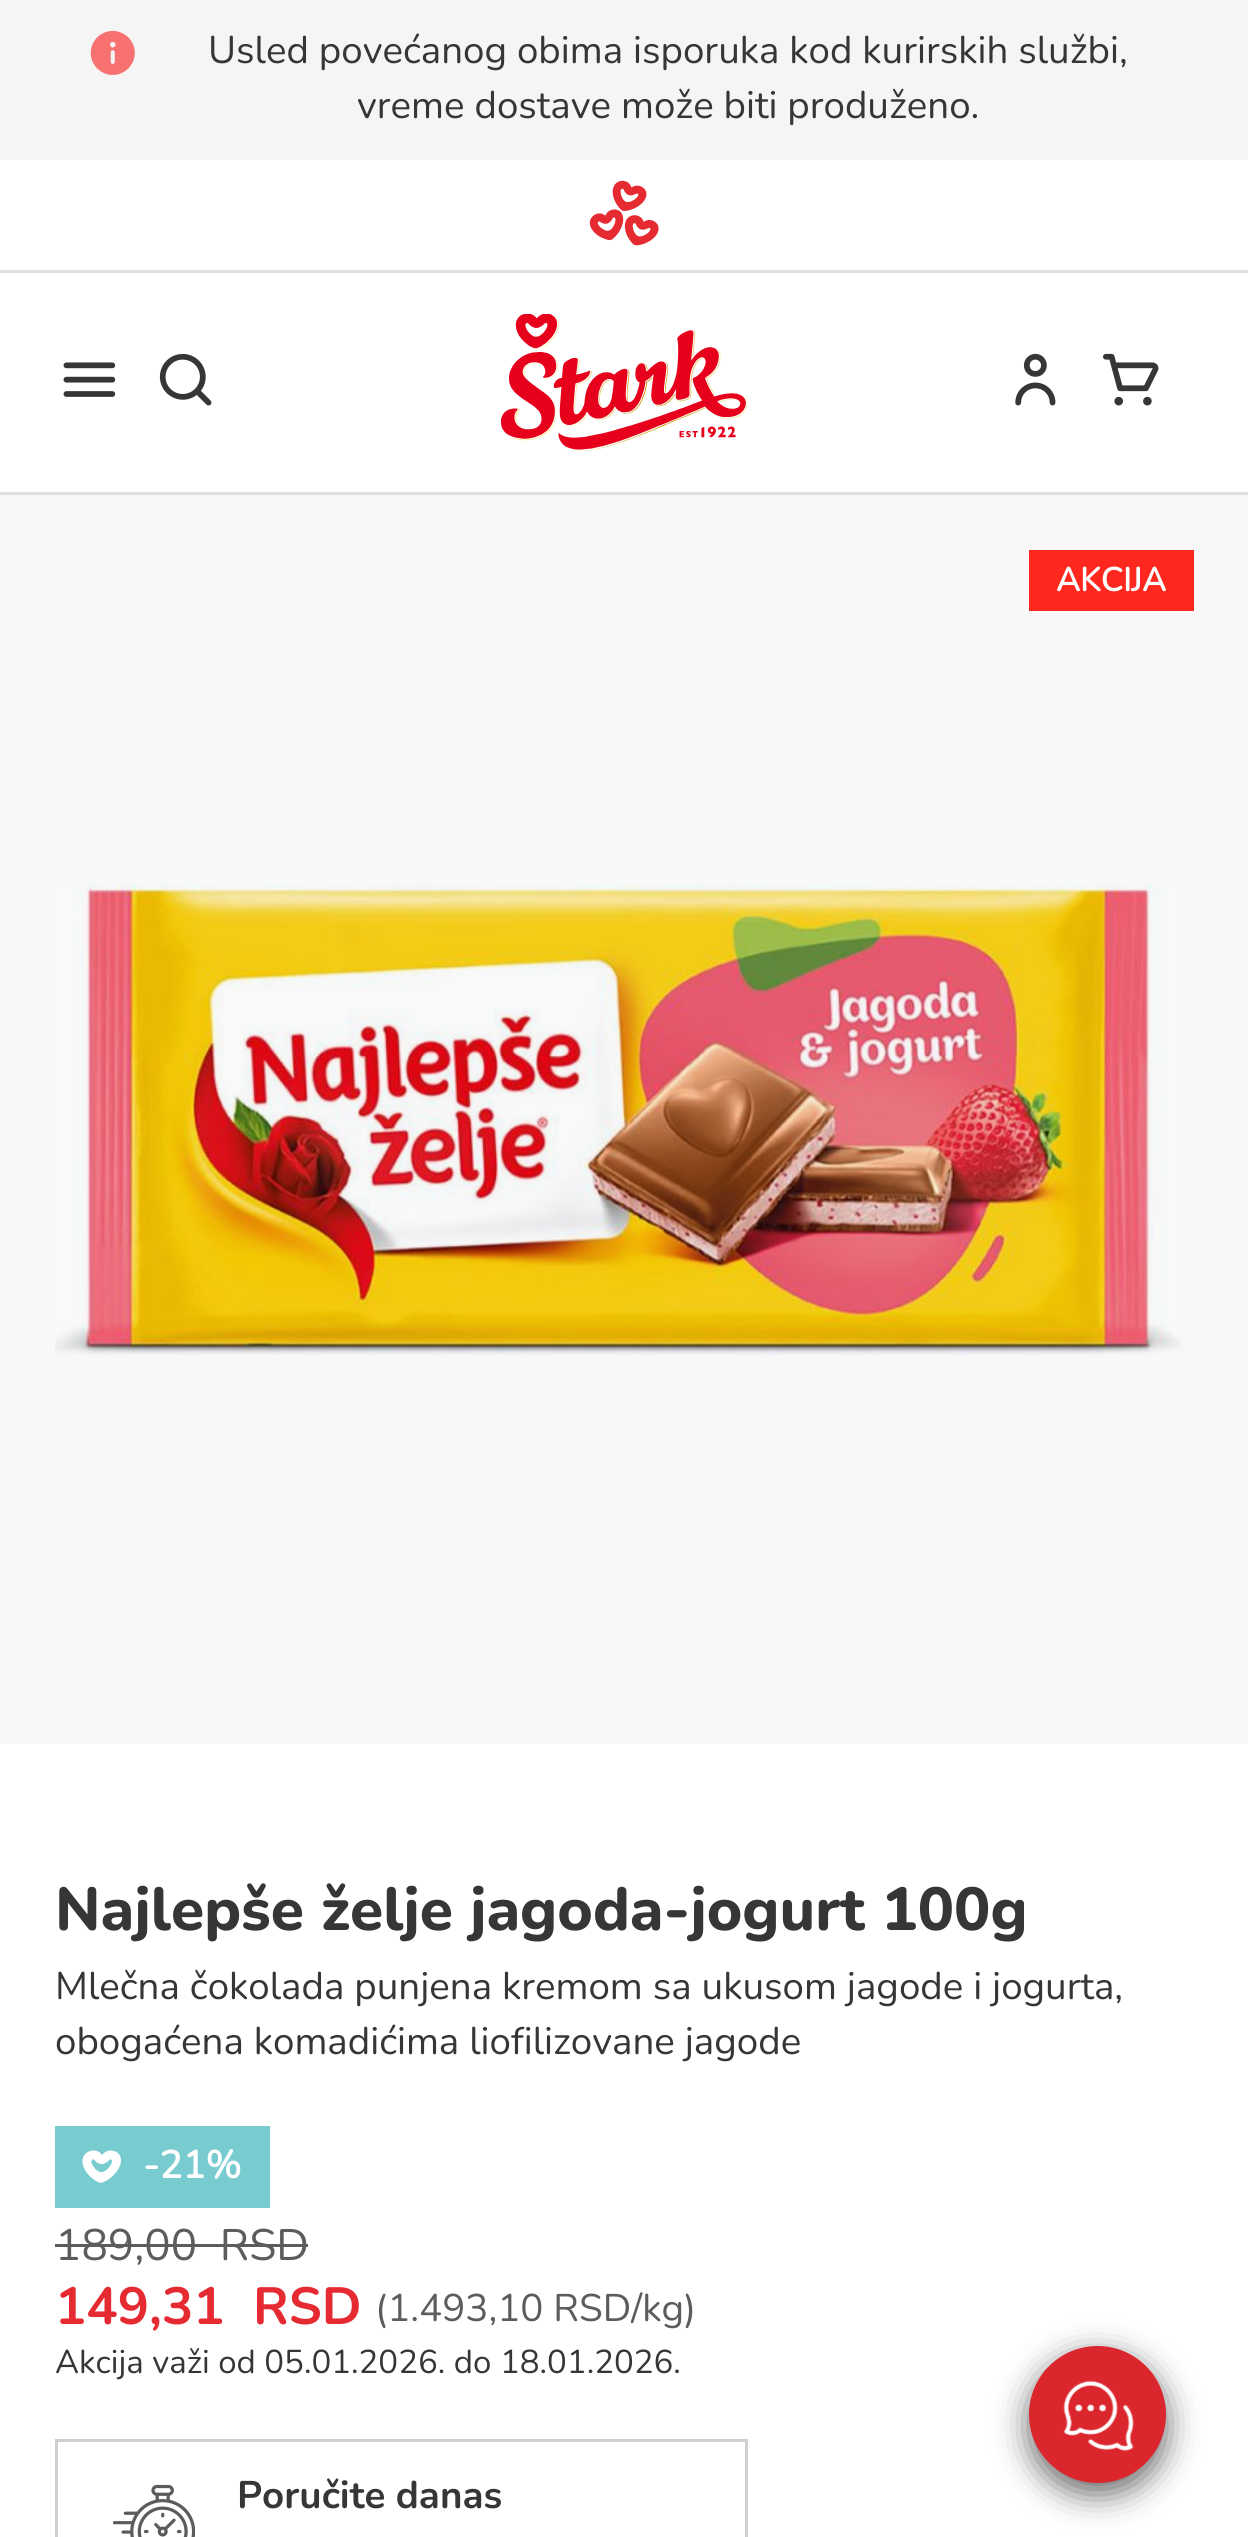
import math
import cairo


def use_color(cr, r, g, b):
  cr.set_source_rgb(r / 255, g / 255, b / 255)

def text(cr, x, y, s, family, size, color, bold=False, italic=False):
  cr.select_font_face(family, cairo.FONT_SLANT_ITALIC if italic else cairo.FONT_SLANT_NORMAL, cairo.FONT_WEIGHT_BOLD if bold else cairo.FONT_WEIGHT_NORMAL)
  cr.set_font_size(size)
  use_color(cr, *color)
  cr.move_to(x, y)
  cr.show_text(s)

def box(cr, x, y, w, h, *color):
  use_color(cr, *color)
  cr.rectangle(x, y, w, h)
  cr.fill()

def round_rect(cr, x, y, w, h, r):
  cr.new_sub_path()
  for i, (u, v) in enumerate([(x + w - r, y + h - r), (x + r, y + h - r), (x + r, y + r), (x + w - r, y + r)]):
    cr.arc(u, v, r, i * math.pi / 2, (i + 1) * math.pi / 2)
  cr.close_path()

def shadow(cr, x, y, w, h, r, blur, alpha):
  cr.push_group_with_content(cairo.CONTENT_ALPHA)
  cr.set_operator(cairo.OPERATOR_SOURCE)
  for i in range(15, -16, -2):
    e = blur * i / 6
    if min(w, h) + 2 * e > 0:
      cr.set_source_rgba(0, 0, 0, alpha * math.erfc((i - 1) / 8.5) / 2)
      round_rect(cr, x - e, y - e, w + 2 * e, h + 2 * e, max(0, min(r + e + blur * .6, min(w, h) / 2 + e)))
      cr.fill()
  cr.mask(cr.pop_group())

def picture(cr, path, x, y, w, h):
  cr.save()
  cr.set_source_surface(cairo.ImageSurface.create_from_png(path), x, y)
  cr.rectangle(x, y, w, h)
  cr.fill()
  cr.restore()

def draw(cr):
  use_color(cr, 255, 255, 255)
  cr.paint()
  box(cr, 0, 495, 1248, 1249, 248, 248, 249)
  box(cr, 0, 492, 1248, 3, 224, 224, 224)
  box(cr, 0, 0, 1248, 160, 245, 245, 245)
  picture(cr, "img_01.png", 90, 30, 45, 45)
  box(cr, 0, 270, 1248, 3, 224, 224, 224)
  picture(cr, "img_02.png", 589, 180, 70, 66)
  picture(cr, "img_03.png", 63, 362, 53, 35)
  picture(cr, "img_04.png", 159, 353, 53, 53)
  picture(cr, "img_05.png", 501, 314, 247, 137)
  picture(cr, "img_06.png", 1015, 353, 41, 53)
  picture(cr, "img_07.png", 1103, 353, 56, 53)
  box(cr, 1029, 550, 165, 61, 255, 40, 30)
  picture(cr, "img_08.png", 55, 884, 1127, 472)
  box(cr, 55, 2126, 215, 82, 120, 203, 207)
  picture(cr, "img_09.png", 82, 2150, 39, 33)
  box(cr, 55, 2244, 253, 3, 92, 92, 92)
  cr.rectangle(56.5, 2440.5, 690, 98)
  use_color(cr, 207, 207, 207)
  cr.set_line_width(3)
  cr.stroke()
  picture(cr, "img_10.png", 113, 2484, 82, 53)
  use_color(cr, 0, 0, 0)
  shadow(cr, 1029, 2357, 137, 137, 68.5, 16.5, 0.6)
  use_color(cr, 218, 38, 44)
  cr.arc(1097.5, 2414.5, 68.5, 0, 2 * math.pi)
  cr.fill()
  picture(cr, "img_11.png", 1063, 2380, 71, 71)
  text(cr, 208, 63, "Usled povećanog obima isporuka kod kurirskih službi,", "Nunito", 38.5, (54, 54, 54))
  text(cr, 357, 118, "vreme dostave može biti produženo.", "Nunito", 38.5, (54, 54, 54))
  text(cr, 1056, 591, "AKCIJA", "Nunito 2", 33, (255, 255, 255), bold=True)
  text(cr, 55, 1930, "Najlepše želje jagoda-jogurt 100g", "Nunito ExtraBold", 60.5, (54, 54, 54))
  text(cr, 55, 1999, "Mlečna čokolada punjena kremom sa ukusom jagode i jogurta,", "Nunito", 38.5, (54, 54, 54))
  text(cr, 55, 2054, "obogaćena komadićima liofilizovane jagode", "Nunito", 38.5, (54, 54, 54))
  text(cr, 143, 2178, "-21%", "Nunito 2", 38.5, (255, 255, 255), bold=True)
  text(cr, 55, 2260, "189,00  RSD", "Nunito", 44, (92, 92, 92))
  text(cr, 55, 2324, "149,31  RSD", "Nunito", 52.25, (230, 42, 50), bold=True)
  text(cr, 375, 2321, "(1.493,10 RSD/kg)", "Nunito", 38.5, (92, 92, 92))
  text(cr, 55, 2373, "Akcija važi od 05.01.2026. do 18.01.2026.", "Nunito", 33, (54, 54, 54))
  text(cr, 237, 2508, "Poručite danas", "Nunito", 38.5, (54, 54, 54), bold=True)


surface = cairo.ImageSurface(cairo.FORMAT_RGB24, 1248, 2537)
cr = cairo.Context(surface)
options = cairo.FontOptions()
options.set_hint_metrics(cairo.HINT_METRICS_OFF)
options.set_hint_style(cairo.HINT_STYLE_NONE)
cr.set_font_options(options)
cr.set_miter_limit(4)
draw(cr)
surface.write_to_png("out.png")
